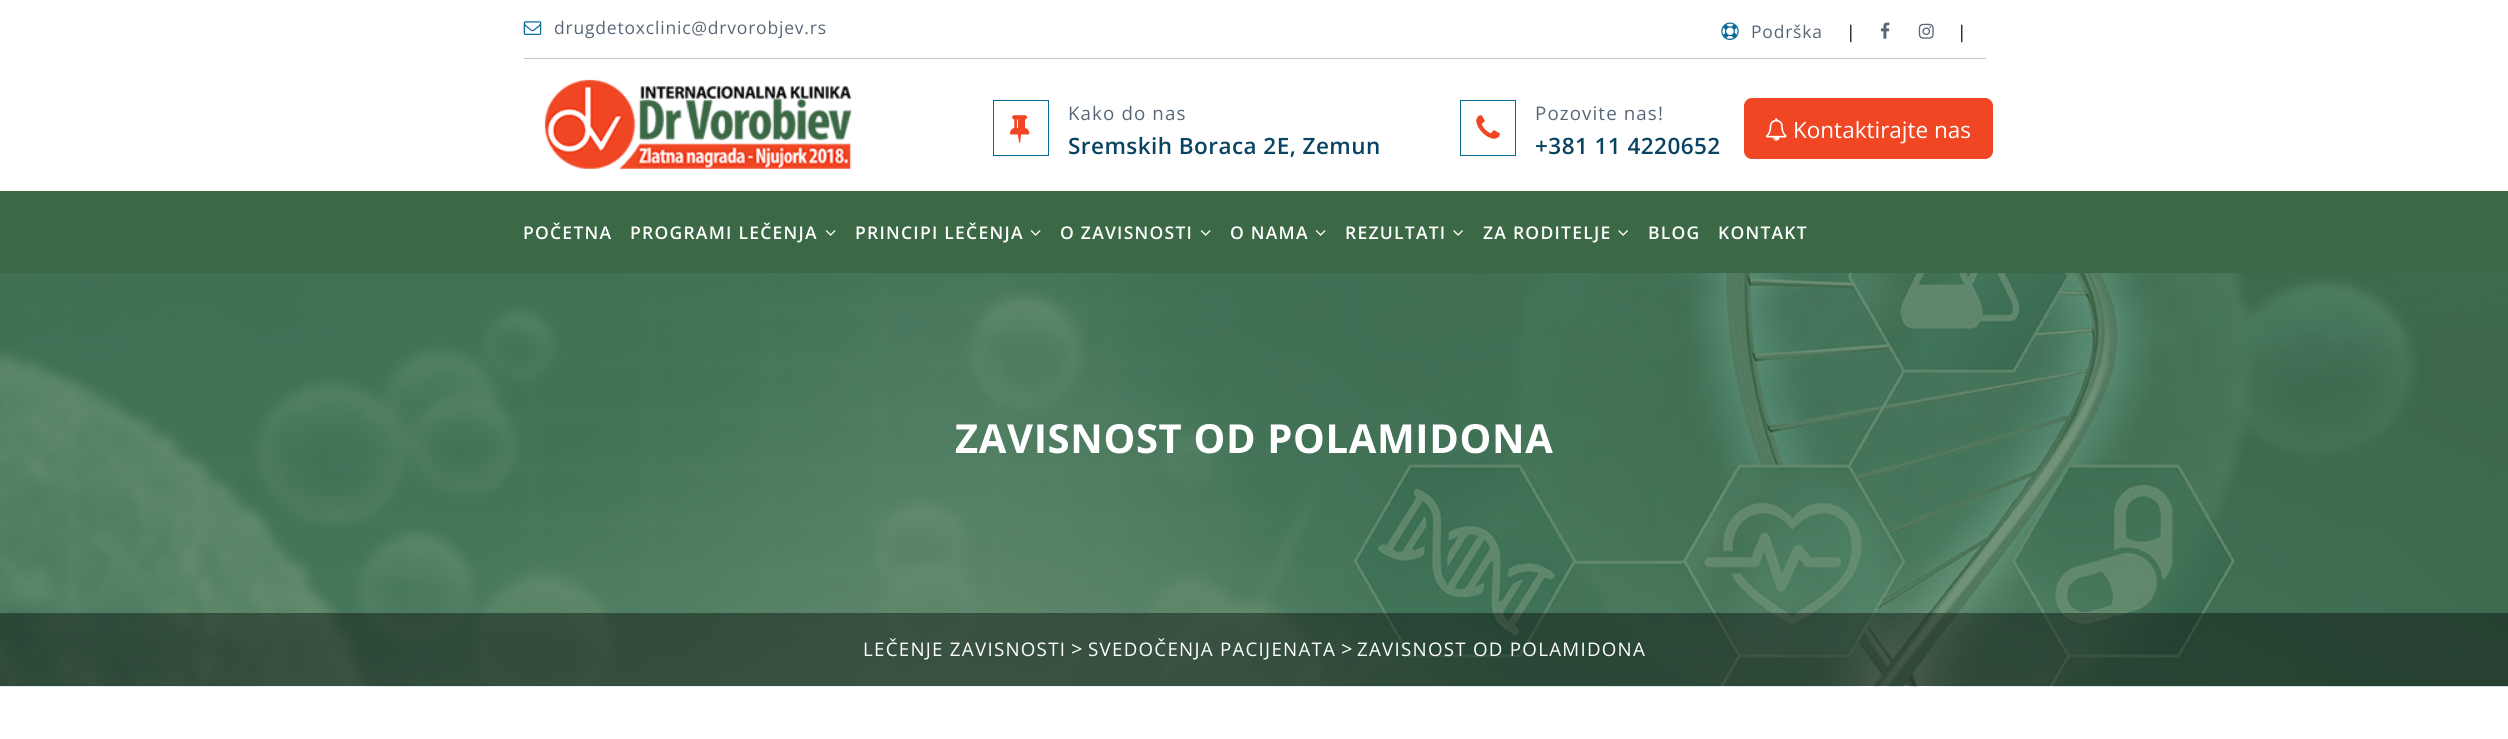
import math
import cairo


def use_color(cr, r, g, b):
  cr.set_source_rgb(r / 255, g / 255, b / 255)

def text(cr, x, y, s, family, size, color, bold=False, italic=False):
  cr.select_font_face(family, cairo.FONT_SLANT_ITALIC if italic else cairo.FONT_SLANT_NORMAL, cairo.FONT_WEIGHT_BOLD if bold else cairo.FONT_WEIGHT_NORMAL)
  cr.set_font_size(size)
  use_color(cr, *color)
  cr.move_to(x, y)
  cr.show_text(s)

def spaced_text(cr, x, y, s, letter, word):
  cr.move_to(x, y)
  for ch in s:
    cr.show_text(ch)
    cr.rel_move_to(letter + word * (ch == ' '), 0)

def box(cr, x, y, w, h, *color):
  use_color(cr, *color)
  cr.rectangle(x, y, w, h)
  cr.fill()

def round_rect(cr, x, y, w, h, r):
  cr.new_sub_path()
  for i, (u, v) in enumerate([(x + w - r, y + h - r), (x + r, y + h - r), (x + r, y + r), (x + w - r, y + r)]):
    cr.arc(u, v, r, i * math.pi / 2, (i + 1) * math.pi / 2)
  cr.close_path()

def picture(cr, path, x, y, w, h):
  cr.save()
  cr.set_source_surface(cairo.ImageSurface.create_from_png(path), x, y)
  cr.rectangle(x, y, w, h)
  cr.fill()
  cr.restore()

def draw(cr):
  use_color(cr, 255, 255, 255)
  cr.paint()
  box(cr, 524, 58, 1462, 1, 192, 197, 202)
  picture(cr, "img_01.png", 523, 21, 19, 14)
  picture(cr, "img_02.png", 1721, 22, 18, 18)
  picture(cr, "img_03.png", 1880, 22, 10, 17)
  picture(cr, "img_04.png", 1918, 23, 16, 16)
  use_color(cr, 240, 70, 36)
  round_rect(cr, 1744.5, 98.5, 248, 60, 7.5)
  cr.fill_preserve()
  cr.set_line_width(1)
  cr.stroke()
  picture(cr, "img_05.png", 1765, 118, 22, 23)
  picture(cr, "img_06.png", 544, 79, 308, 90)
  cr.rectangle(993.5, 100.5, 55, 55)
  use_color(cr, 13, 107, 154)
  cr.stroke()
  picture(cr, "img_07.png", 1010, 115, 20, 28)
  cr.rectangle(1460.5, 100.5, 55, 55)
  cr.stroke()
  picture(cr, "img_08.png", 1476, 115, 24, 24)
  box(cr, 0, 191, 2508, 83, 59, 104, 69)
  picture(cr, "img_09.png", 825, 230, 11, 6)
  picture(cr, "img_09.png", 1030, 230, 11, 6)
  picture(cr, "img_09.png", 1200, 230, 11, 6)
  picture(cr, "img_09.png", 1315, 230, 11, 6)
  picture(cr, "img_10.png", 1453, 230, 10, 6)
  picture(cr, "img_10.png", 1618, 230, 10, 6)
  picture(cr, "img_11.png", 0, 273, 2508, 414)
  cr.set_source_rgba(0, 0, 0, 0.4)
  cr.rectangle(0, 613, 2508, 73)
  cr.fill()
  cr.select_font_face("Open Sans")
  cr.set_font_size(17.5)
  use_color(cr, 87, 103, 119)
  spaced_text(cr, 554, 34, "drugdetoxclinic@drvorobjev.rs", 0.8, 0)
  spaced_text(cr, 1751, 38, "Podrška", 0.8, 0)
  text(cr, 1846, 38, "|", "Open Sans", 17.5, (0, 0, 0))
  text(cr, 1957, 38, "|", "Open Sans", 17.5, (0, 0, 0))
  text(cr, 1793, 138, "Kontaktirajte nas", "Open Sans", 22.5, (255, 255, 255))
  cr.set_font_size(18.75)
  use_color(cr, 87, 103, 119)
  spaced_text(cr, 1068, 120, "Kako do nas", 1.1, 0)
  cr.select_font_face("Open Sans SemiBold")
  cr.set_font_size(22.5)
  use_color(cr, 9, 68, 98)
  spaced_text(cr, 1068, 154, "Sremskih Boraca 2E, Zemun", 0.45, 0)
  cr.select_font_face("Open Sans")
  cr.set_font_size(18.75)
  use_color(cr, 87, 103, 119)
  spaced_text(cr, 1535, 120, "Pozovite nas!", 1.1, 0)
  cr.select_font_face("Open Sans SemiBold")
  cr.set_font_size(22.5)
  use_color(cr, 9, 68, 98)
  spaced_text(cr, 1535, 154, "+381 11 4220652", 0.45, 0)
  cr.set_font_size(17.5)
  use_color(cr, 255, 255, 255)
  spaced_text(cr, 523, 239, "POČETNA", 1.25, 0)
  spaced_text(cr, 630, 239, "PROGRAMI LEČENJA", 1.25, 0)
  spaced_text(cr, 855, 239, "PRINCIPI LEČENJA", 1.25, 0)
  spaced_text(cr, 1060, 239, "O ZAVISNOSTI", 1.25, 0)
  spaced_text(cr, 1230, 239, "O NAMA", 1.25, 0)
  spaced_text(cr, 1345, 239, "REZULTATI", 1.25, 0)
  spaced_text(cr, 1483, 239, "ZA RODITELJE", 1.25, 0)
  spaced_text(cr, 1648, 239, "BLOG", 1.25, 0)
  spaced_text(cr, 1718, 239, "KONTAKT", 1.25, 0)
  cr.select_font_face("Open Sans", cairo.FONT_SLANT_NORMAL, cairo.FONT_WEIGHT_BOLD)
  cr.set_font_size(40)
  spaced_text(cr, 955, 453, "ZAVISNOST OD POLAMIDONA", 0.65, 0)
  cr.select_font_face("Open Sans")
  cr.set_font_size(18.75)
  spaced_text(cr, 863, 656, "LEČENJE ZAVISNOSTI", 1.25, 0)
  text(cr, 1071, 656, ">", "Open Sans", 20, (255, 255, 255))
  cr.set_font_size(18.75)
  spaced_text(cr, 1088, 656, "SVEDOČENJA PACIJENATA", 1.25, 0)
  text(cr, 1341, 656, ">", "Open Sans", 20, (255, 255, 255))
  cr.set_font_size(18.75)
  spaced_text(cr, 1357, 656, "ZAVISNOST OD POLAMIDONA", 1.25, 0)


surface = cairo.ImageSurface(cairo.FORMAT_RGB24, 2508, 739)
cr = cairo.Context(surface)
options = cairo.FontOptions()
options.set_hint_metrics(cairo.HINT_METRICS_OFF)
options.set_hint_style(cairo.HINT_STYLE_NONE)
cr.set_font_options(options)
cr.set_miter_limit(4)
draw(cr)
surface.write_to_png("out.png")
